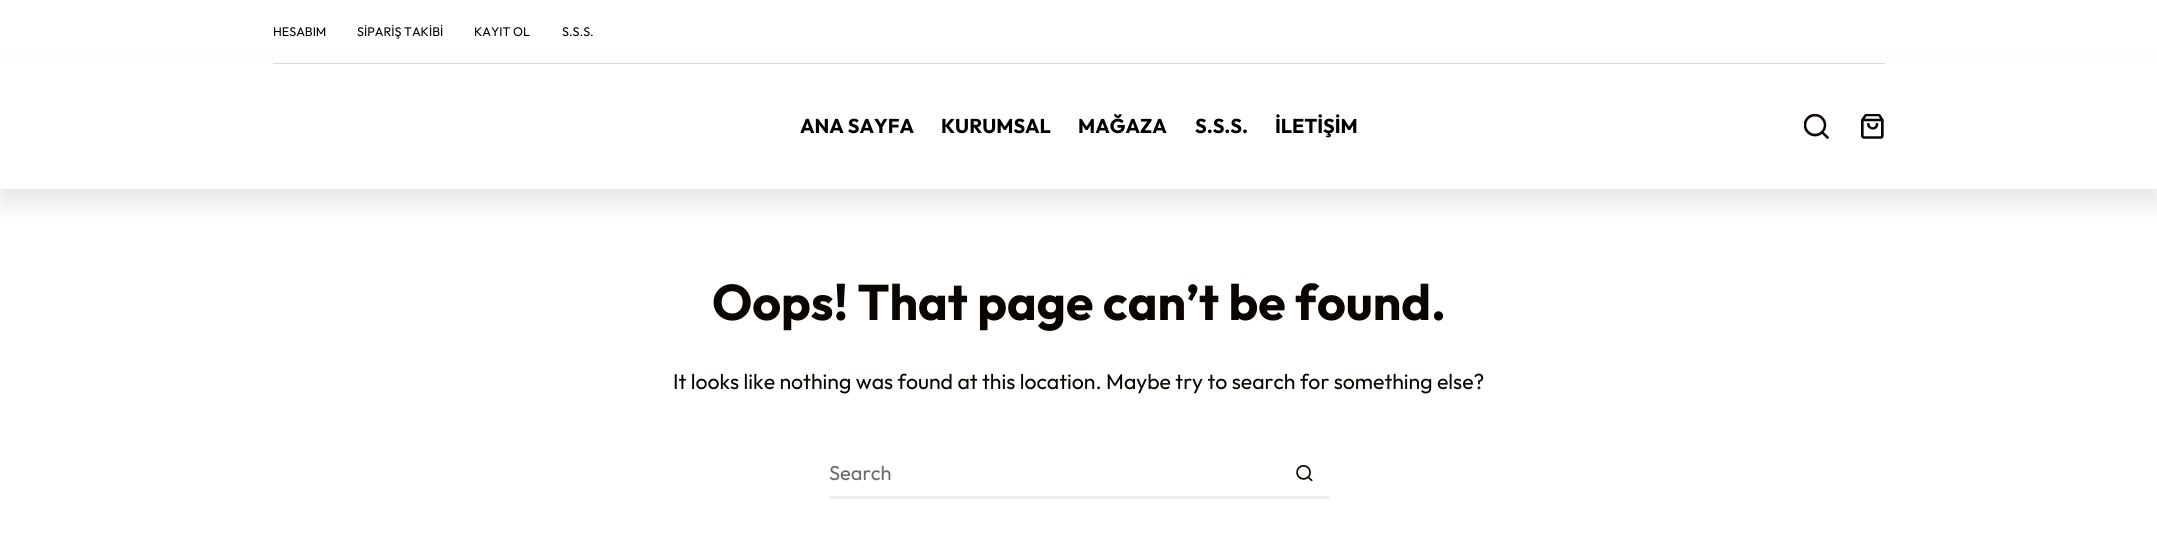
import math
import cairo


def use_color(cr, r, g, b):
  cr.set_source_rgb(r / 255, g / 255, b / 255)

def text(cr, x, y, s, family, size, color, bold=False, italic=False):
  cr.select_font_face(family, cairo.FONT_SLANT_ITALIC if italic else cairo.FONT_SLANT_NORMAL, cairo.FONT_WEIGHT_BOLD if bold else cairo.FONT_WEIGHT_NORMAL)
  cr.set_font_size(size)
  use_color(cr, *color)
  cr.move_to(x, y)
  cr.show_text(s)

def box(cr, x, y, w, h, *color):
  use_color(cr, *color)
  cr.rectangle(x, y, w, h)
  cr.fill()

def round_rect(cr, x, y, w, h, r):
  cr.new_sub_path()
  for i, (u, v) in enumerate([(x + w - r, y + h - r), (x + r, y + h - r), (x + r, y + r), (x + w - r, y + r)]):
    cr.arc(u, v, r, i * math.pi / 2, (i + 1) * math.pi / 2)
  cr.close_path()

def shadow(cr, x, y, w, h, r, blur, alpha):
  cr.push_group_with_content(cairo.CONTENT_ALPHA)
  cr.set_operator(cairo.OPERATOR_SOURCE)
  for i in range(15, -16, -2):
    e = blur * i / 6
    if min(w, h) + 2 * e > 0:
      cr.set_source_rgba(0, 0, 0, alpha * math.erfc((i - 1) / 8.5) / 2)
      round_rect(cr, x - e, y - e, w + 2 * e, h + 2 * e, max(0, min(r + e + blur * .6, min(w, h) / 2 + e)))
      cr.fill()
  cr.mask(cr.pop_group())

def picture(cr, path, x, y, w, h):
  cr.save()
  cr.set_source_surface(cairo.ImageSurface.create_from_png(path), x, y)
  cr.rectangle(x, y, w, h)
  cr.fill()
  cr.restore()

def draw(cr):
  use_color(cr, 255, 255, 255)
  cr.paint()
  use_color(cr, 44, 62, 80)
  shadow(cr, 0, 76, 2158, 125, 0, 12.5, 0.15)
  box(cr, 1, 59, 2156, 5, 255, 255, 255)
  box(cr, 273, 63, 1612, 1, 213, 216, 220)
  box(cr, 0, 64, 2157, 125, 255, 255, 255)
  picture(cr, "img_01.png", 1804, 114, 25, 25)
  picture(cr, "img_02.png", 1861, 114, 23, 25)
  box(cr, 829, 496, 500, 3, 237, 239, 242)
  picture(cr, "img_03.png", 1296, 465, 17, 16)
  text(cr, 273, 36, "HESABIM", "Outfit", 12.5, (0, 0, 0))
  text(cr, 357, 36, "SİPARİŞ TAKİBİ", "Outfit", 12.5, (0, 0, 0))
  text(cr, 474, 36, "KAYIT OL", "Outfit", 12.5, (0, 0, 0))
  text(cr, 562, 36, "S.S.S.", "Outfit", 12.5, (0, 0, 0))
  text(cr, 800, 133, "ANA SAYFA", "Outfit", 20, (0, 0, 0), bold=True)
  text(cr, 941, 133, "KURUMSAL", "Outfit", 20, (0, 0, 0), bold=True)
  text(cr, 1078, 133, "MAĞAZA", "Outfit", 20, (0, 0, 0), bold=True)
  text(cr, 1195, 133, "S.S.S.", "Outfit", 20, (0, 0, 0), bold=True)
  text(cr, 1275, 133, "İLETİŞİM", "Outfit", 20, (0, 0, 0), bold=True)
  text(cr, 712, 320, "Oops! That page can’t be found.", "Outfit", 50, (10, 5, 0), bold=True)
  text(cr, 673, 389, "It looks like nothing was found at this location. Maybe try to search for something else?", "Outfit", 21.25, (10, 5, 0))
  text(cr, 829, 480, "Search", "Outfit", 20, (108, 105, 102))


surface = cairo.ImageSurface(cairo.FORMAT_RGB24, 2157, 541)
cr = cairo.Context(surface)
options = cairo.FontOptions()
options.set_hint_metrics(cairo.HINT_METRICS_OFF)
options.set_hint_style(cairo.HINT_STYLE_NONE)
cr.set_font_options(options)
cr.set_miter_limit(4)
draw(cr)
surface.write_to_png("out.png")
